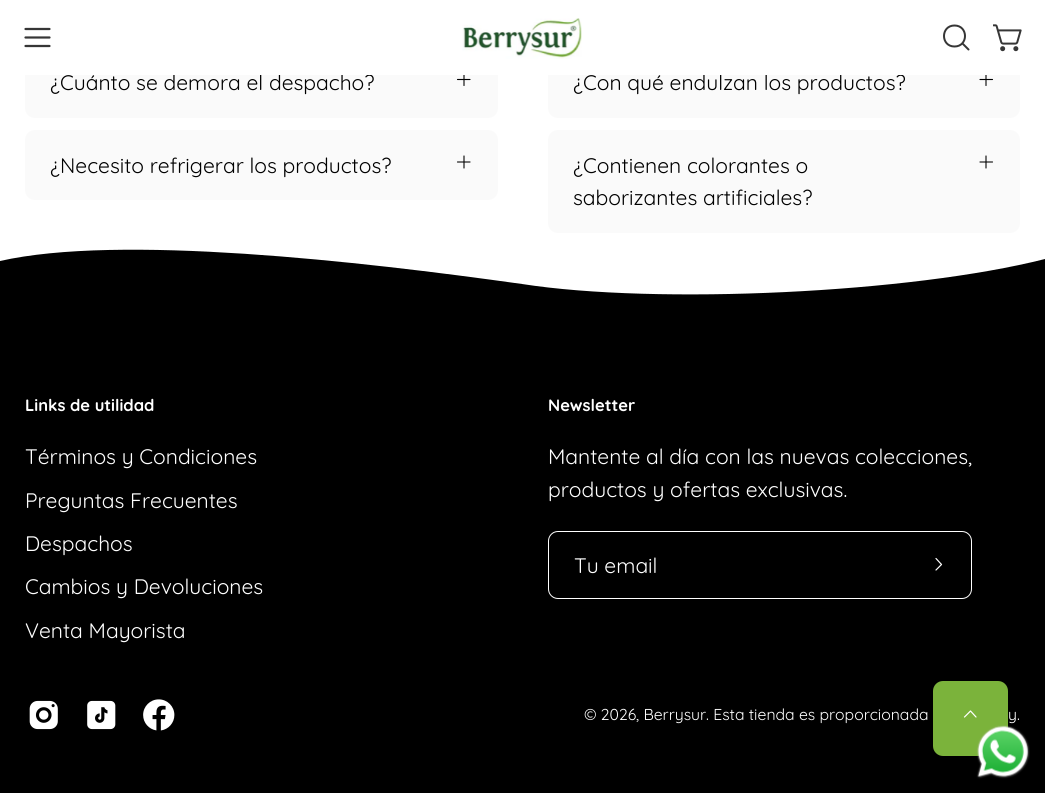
import math
import cairo


def use_color(cr, r, g, b):
  cr.set_source_rgb(r / 255, g / 255, b / 255)

def text(cr, x, y, s, family, size, color, bold=False, italic=False):
  cr.select_font_face(family, cairo.FONT_SLANT_ITALIC if italic else cairo.FONT_SLANT_NORMAL, cairo.FONT_WEIGHT_BOLD if bold else cairo.FONT_WEIGHT_NORMAL)
  cr.set_font_size(size)
  use_color(cr, *color)
  cr.move_to(x, y)
  cr.show_text(s)

def box(cr, x, y, w, h, *color):
  use_color(cr, *color)
  cr.rectangle(x, y, w, h)
  cr.fill()

def round_rect(cr, x, y, w, h, r):
  cr.new_sub_path()
  for i, (u, v) in enumerate([(x + w - r, y + h - r), (x + r, y + h - r), (x + r, y + r), (x + w - r, y + r)]):
    cr.arc(u, v, r, i * math.pi / 2, (i + 1) * math.pi / 2)
  cr.close_path()

def shadow(cr, x, y, w, h, r, blur, alpha):
  cr.push_group_with_content(cairo.CONTENT_ALPHA)
  cr.set_operator(cairo.OPERATOR_SOURCE)
  for i in range(15, -16, -2):
    e = blur * i / 6
    if min(w, h) + 2 * e > 0:
      cr.set_source_rgba(0, 0, 0, alpha * math.erfc((i - 1) / 8.5) / 2)
      round_rect(cr, x - e, y - e, w + 2 * e, h + 2 * e, max(0, min(r + e + blur * .6, min(w, h) / 2 + e)))
      cr.fill()
  cr.mask(cr.pop_group())

def picture(cr, path, x, y, w, h):
  cr.save()
  cr.set_source_surface(cairo.ImageSurface.create_from_png(path), x, y)
  cr.rectangle(x, y, w, h)
  cr.fill()
  cr.restore()

def draw(cr):
  use_color(cr, 0, 0, 0)
  cr.paint()
  box(cr, 0, 75, 1045, 220, 255, 255, 255)
  use_color(cr, 250, 250, 250)
  round_rect(cr, 25, 48, 473, 70, 10)
  cr.fill()
  cr.new_path()
  cr.move_to(457.5, 79.5)
  cr.line_to(470, 79.5)
  cr.move_to(464, 73.5)
  cr.line_to(464, 85.5)
  use_color(cr, 0, 0, 0)
  cr.set_line_width(1.1)
  cr.set_line_cap(cairo.LINE_CAP_ROUND)
  cr.set_line_join(cairo.LINE_JOIN_ROUND)
  cr.stroke()
  use_color(cr, 250, 250, 250)
  round_rect(cr, 25, 130, 473, 70, 10)
  cr.fill()
  cr.new_path()
  cr.move_to(457.5, 162)
  cr.line_to(470, 162)
  cr.move_to(464, 156)
  cr.line_to(464, 168)
  use_color(cr, 0, 0, 0)
  cr.stroke()
  use_color(cr, 250, 250, 250)
  round_rect(cr, 548, 48, 472, 70, 10)
  cr.fill()
  cr.new_path()
  cr.move_to(980, 79.5)
  cr.line_to(992.5, 79.5)
  cr.move_to(986, 73.5)
  cr.line_to(986, 85.5)
  use_color(cr, 0, 0, 0)
  cr.stroke()
  use_color(cr, 250, 250, 250)
  round_rect(cr, 548, 130, 472, 103, 10)
  cr.fill()
  cr.new_path()
  cr.move_to(980, 162)
  cr.line_to(992.5, 162)
  cr.move_to(986, 156)
  cr.line_to(986, 168)
  use_color(cr, 0, 0, 0)
  cr.stroke()
  cr.save()
  cr.rectangle(0, 249, 1045, 71)
  cr.clip()
  cr.new_path()
  cr.move_to(0, 261)
  cr.curve_to(119, 234, 358, 261, 522, 284)
  cr.curve_to(657, 305, 911, 293, 1045, 259)
  cr.line_to(1045, 321)
  cr.line_to(0, 321)
  cr.fill()
  cr.restore()
  use_color(cr, 255, 255, 255)
  cr.set_fill_rule(cairo.FILL_RULE_EVEN_ODD)
  cr.new_path()
  cr.move_to(558, 531)
  cr.line_to(905, 531)
  cr.line_to(905, 599)
  cr.line_to(558, 599)
  cr.curve_to(552, 599, 548, 594, 548, 589)
  cr.line_to(548, 541)
  cr.curve_to(548, 536, 552, 531, 558, 531)
  cr.close_path()
  cr.move_to(558, 532)
  cr.line_to(905, 532)
  cr.line_to(905, 598)
  cr.line_to(558, 598)
  cr.curve_to(553, 598, 549, 594, 549, 589)
  cr.line_to(549, 541)
  cr.curve_to(549, 536, 553, 532, 558, 532)
  cr.close_path()
  cr.fill()
  cr.new_path()
  cr.move_to(905, 531)
  cr.line_to(962, 531)
  cr.curve_to(968, 531, 972, 536, 972, 541)
  cr.line_to(972, 589)
  cr.curve_to(972, 594, 968, 599, 962, 599)
  cr.line_to(905, 599)
  cr.close_path()
  cr.move_to(905, 532)
  cr.line_to(962, 532)
  cr.curve_to(967, 532, 971, 536, 971, 541)
  cr.line_to(971, 589)
  cr.curve_to(971, 594, 967, 598, 962, 598)
  cr.line_to(905, 598)
  cr.close_path()
  cr.fill()
  cr.new_path()
  cr.move_to(936, 558.5)
  cr.line_to(941.5, 564.5)
  cr.line_to(936, 570)
  cr.set_line_width(1.2)
  cr.stroke()
  picture(cr, "img_03.png", 29, 700, 29, 30)
  picture(cr, "img_04.png", 87, 700, 29, 30)
  picture(cr, "img_05.png", 143, 699, 32, 32)
  use_color(cr, 0, 0, 0)
  shadow(cr, 933, 681, 75, 75, 10, 6, 0.2)
  use_color(cr, 123, 179, 59)
  round_rect(cr, 933, 681, 75, 75, 10)
  cr.fill()
  cr.new_path()
  cr.move_to(964.5, 717)
  cr.line_to(970.5, 711)
  cr.line_to(976, 717)
  use_color(cr, 255, 255, 255)
  cr.stroke()
  picture(cr, "img_06.png", 976, 725, 54, 54)
  text(cr, 50, 90, "¿Cuánto se demora el despacho?", "Quicksand Light", 21, (0, 0, 0))
  text(cr, 50, 173, "¿Necesito refrigerar los productos?", "Quicksand Light", 21, (0, 0, 0))
  text(cr, 573, 90, "¿Con qué endulzan los productos?", "Quicksand Light", 21, (0, 0, 0))
  box(cr, 0, 0, 1045, 75, 255, 255, 255)
  cr.new_path()
  cr.move_to(25.5, 37.5)
  cr.line_to(49.5, 37.5)
  cr.move_to(25.5, 29)
  cr.line_to(49.5, 29)
  cr.move_to(25.5, 46)
  cr.line_to(49.5, 46)
  use_color(cr, 54, 54, 54)
  cr.set_line_width(2.2)
  cr.stroke()
  picture(cr, "img_01.png", 462, 18, 120, 41)
  picture(cr, "img_02.png", 993, 24, 29, 28)
  cr.new_path()
  cr.move_to(954.5, 46.5)
  cr.curve_to(968.5, 46.5, 968.5, 25.5, 954.5, 25.5)
  cr.curve_to(940.5, 25.5, 940.5, 46.5, 954.5, 46.5)
  cr.close_path()
  cr.move_to(962.5, 43.5)
  cr.line_to(968.5, 49.5)
  cr.set_line_width(2)
  cr.stroke()
  text(cr, 573, 173, "¿Contienen colorantes o", "Quicksand Light", 21, (0, 0, 0))
  text(cr, 573, 205, "saborizantes artificiales?", "Quicksand Light", 21, (0, 0, 0))
  text(cr, 25, 411, "Links de utilidad", "Quicksand", 16.5, (255, 255, 255), bold=True)
  text(cr, 25, 464, "Términos y Condiciones", "Quicksand Light", 21, (255, 255, 255))
  text(cr, 25, 508, "Preguntas Frecuentes", "Quicksand Light", 21, (255, 255, 255))
  text(cr, 25, 551, "Despachos", "Quicksand Light", 21, (255, 255, 255))
  text(cr, 25, 594, "Cambios y Devoluciones", "Quicksand Light", 21, (255, 255, 255))
  text(cr, 25, 638, "Venta Mayorista", "Quicksand Light", 21, (255, 255, 255))
  text(cr, 548, 411, "Newsletter", "Quicksand", 16.5, (255, 255, 255), bold=True)
  text(cr, 548, 464, "Mantente al día con las nuevas colecciones,", "Quicksand Light", 21, (255, 255, 255))
  text(cr, 548, 497, "productos y ofertas exclusivas.", "Quicksand Light", 21, (255, 255, 255))
  text(cr, 574, 573, "Tu email", "Quicksand Light", 21, (255, 255, 255))
  text(cr, 584, 720, "© 2026, Berrysur. Esta tienda es proporcionada", "Quicksand Light", 15.75, (255, 255, 255))
  text(cr, 1008, 720, "y.", "Quicksand Light", 15.75, (255, 255, 255))


surface = cairo.ImageSurface(cairo.FORMAT_RGB24, 1045, 793)
cr = cairo.Context(surface)
options = cairo.FontOptions()
options.set_hint_metrics(cairo.HINT_METRICS_OFF)
options.set_hint_style(cairo.HINT_STYLE_NONE)
cr.set_font_options(options)
cr.set_miter_limit(4)
draw(cr)
surface.write_to_png("out.png")
